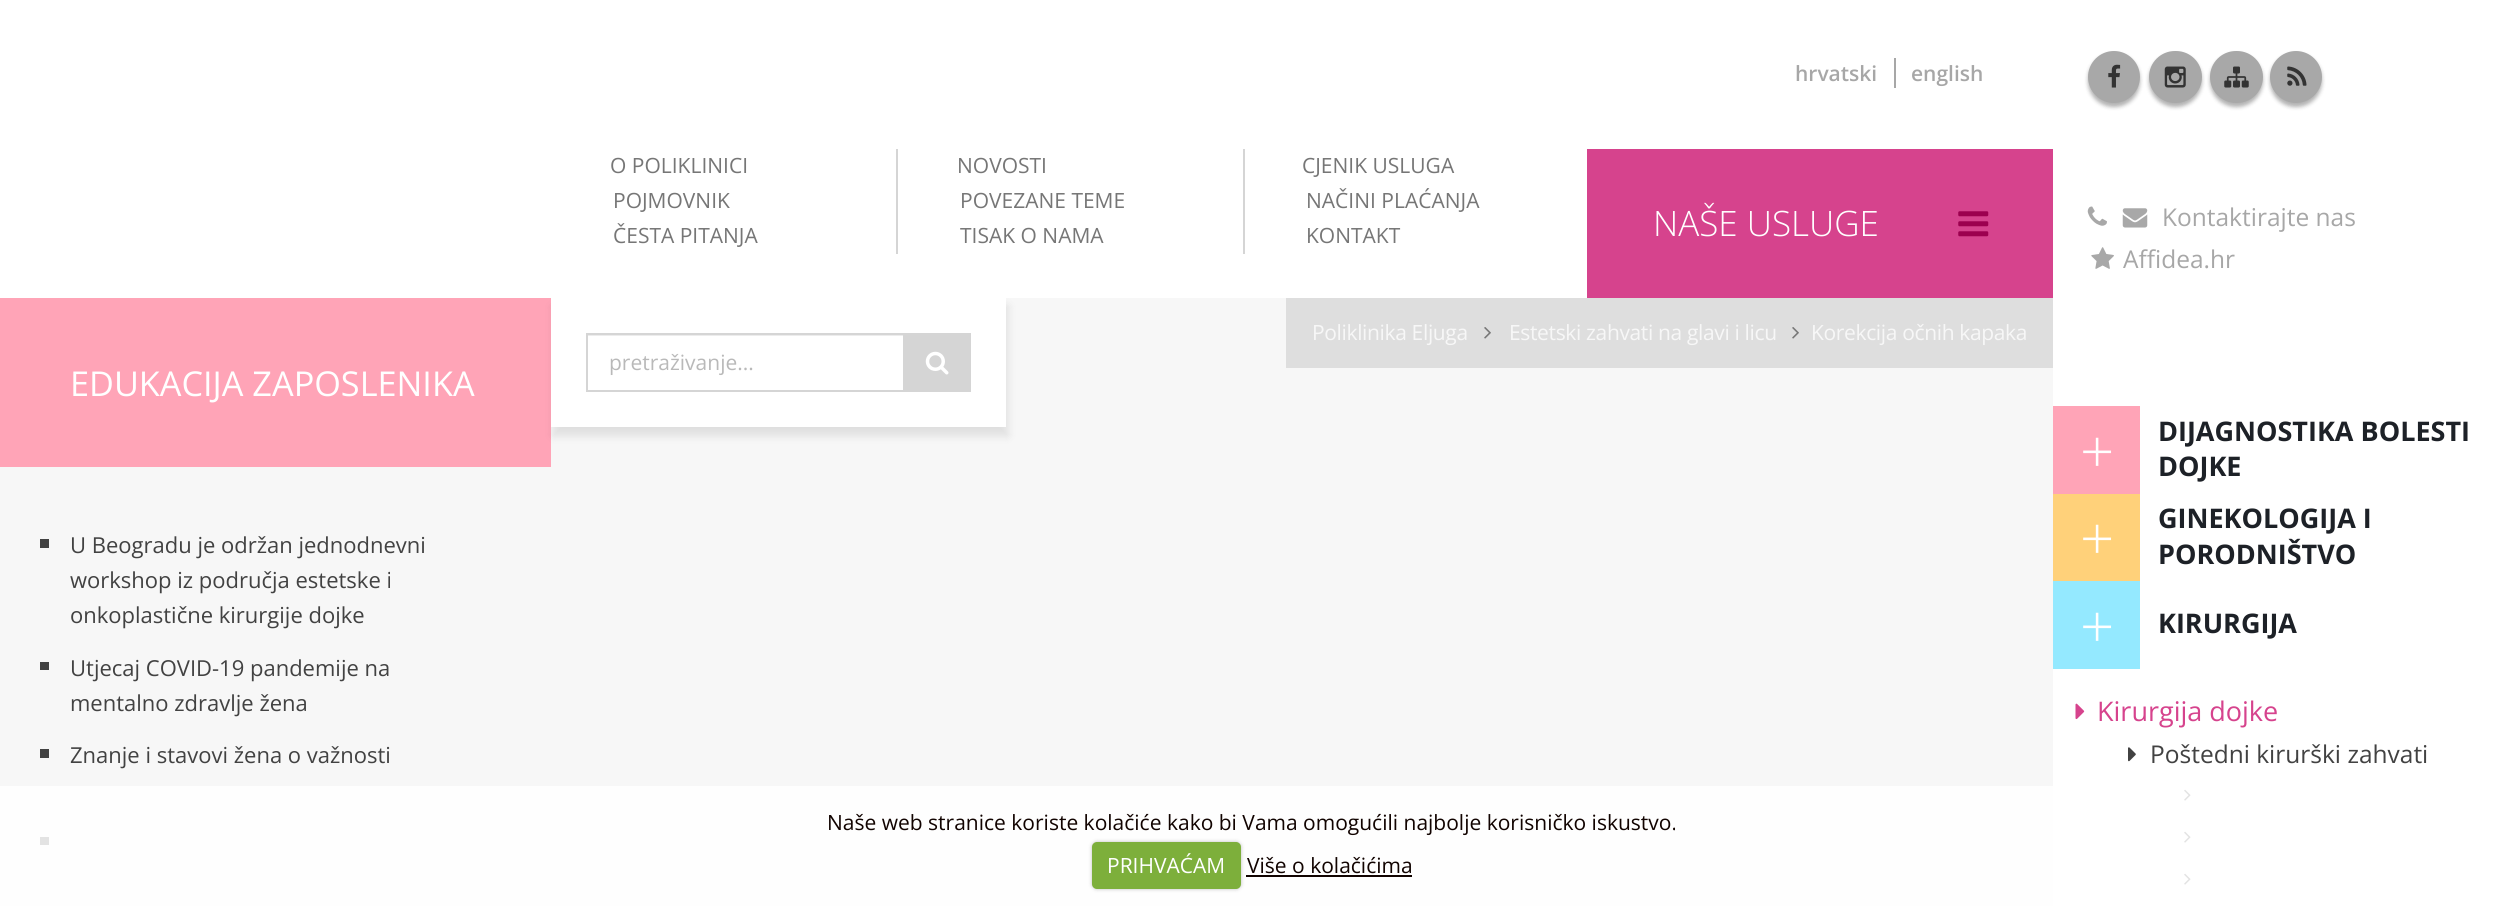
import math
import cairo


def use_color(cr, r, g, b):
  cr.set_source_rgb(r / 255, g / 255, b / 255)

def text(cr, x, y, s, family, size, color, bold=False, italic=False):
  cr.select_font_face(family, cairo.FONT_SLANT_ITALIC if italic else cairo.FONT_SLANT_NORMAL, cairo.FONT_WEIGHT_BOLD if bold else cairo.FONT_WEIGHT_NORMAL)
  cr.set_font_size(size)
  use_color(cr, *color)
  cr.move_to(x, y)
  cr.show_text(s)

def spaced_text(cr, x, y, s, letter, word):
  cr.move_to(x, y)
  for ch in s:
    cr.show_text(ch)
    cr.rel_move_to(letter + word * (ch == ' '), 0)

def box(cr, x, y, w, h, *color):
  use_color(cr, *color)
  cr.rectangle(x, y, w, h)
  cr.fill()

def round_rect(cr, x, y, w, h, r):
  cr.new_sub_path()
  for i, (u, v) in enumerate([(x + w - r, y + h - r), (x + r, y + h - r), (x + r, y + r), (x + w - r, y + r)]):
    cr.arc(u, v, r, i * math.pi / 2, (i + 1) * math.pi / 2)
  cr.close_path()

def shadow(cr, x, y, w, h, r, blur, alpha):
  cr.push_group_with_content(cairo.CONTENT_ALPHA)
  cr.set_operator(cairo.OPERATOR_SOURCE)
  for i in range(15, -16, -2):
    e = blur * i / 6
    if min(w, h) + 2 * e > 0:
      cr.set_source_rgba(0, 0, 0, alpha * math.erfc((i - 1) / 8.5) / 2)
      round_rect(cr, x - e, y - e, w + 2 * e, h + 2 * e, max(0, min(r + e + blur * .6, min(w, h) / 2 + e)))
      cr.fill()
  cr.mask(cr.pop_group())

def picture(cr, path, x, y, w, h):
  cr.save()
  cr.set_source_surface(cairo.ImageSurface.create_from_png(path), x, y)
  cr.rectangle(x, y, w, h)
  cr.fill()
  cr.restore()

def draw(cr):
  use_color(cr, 255, 255, 255)
  cr.paint()
  box(cr, 1894, 58, 2, 30, 167, 167, 167)
  box(cr, 896, 149, 2, 105, 213, 213, 213)
  box(cr, 1243, 149, 2, 105, 213, 213, 213)
  box(cr, 1587, 149, 466, 149, 214, 67, 141)
  picture(cr, "img_01.png", 1958, 211, 31, 26)
  box(cr, 551, 298, 1502, 608, 247, 247, 247)
  box(cr, 0, 298, 551, 169, 255, 164, 183)
  use_color(cr, 0, 0, 0)
  shadow(cr, 553, 306, 455, 130, 0, 4.5, 0.1)
  box(cr, 551, 298, 455, 129, 255, 255, 255)
  box(cr, 588, 335, 315, 1, 236, 236, 236)
  cr.rectangle(587, 334, 317, 57)
  use_color(cr, 213, 213, 213)
  cr.stroke()
  box(cr, 905, 333, 66, 59, 213, 213, 213)
  picture(cr, "img_02.png", 925, 351, 24, 24)
  use_color(cr, 0, 0, 0)
  shadow(cr, 2088, 54, 52, 53, 26, 2, 0.3)
  use_color(cr, 168, 168, 168)
  cr.arc(2114, 77, 26, 0, 2 * math.pi)
  cr.fill()
  picture(cr, "img_03.png", 2108, 64, 13, 24)
  use_color(cr, 0, 0, 0)
  shadow(cr, 2149, 54, 53, 53, 26.5, 2, 0.3)
  use_color(cr, 168, 168, 168)
  round_rect(cr, 2149, 51, 53, 52, 26)
  cr.fill()
  picture(cr, "img_04.png", 2164, 66, 22, 22)
  use_color(cr, 0, 0, 0)
  shadow(cr, 2210, 54, 53, 53, 26.5, 2, 0.3)
  use_color(cr, 168, 168, 168)
  round_rect(cr, 2210, 51, 53, 52, 26)
  cr.fill()
  picture(cr, "img_05.png", 2224, 66, 25, 22)
  use_color(cr, 0, 0, 0)
  shadow(cr, 2270, 54, 52, 53, 26, 2, 0.3)
  use_color(cr, 168, 168, 168)
  cr.arc(2296, 77, 26, 0, 2 * math.pi)
  cr.fill()
  picture(cr, "img_06.png", 2287, 66, 20, 20)
  picture(cr, "img_07.png", 2087, 206, 20, 20)
  picture(cr, "img_08.png", 2122, 208, 26, 20)
  picture(cr, "img_09.png", 2091, 247, 23, 22)
  box(cr, 1286, 298, 767, 70, 222, 222, 222)
  picture(cr, "img_10.png", 1484, 327, 7, 12)
  picture(cr, "img_10.png", 1792, 327, 7, 12)
  box(cr, 0, 467, 551, 439, 247, 247, 247)
  box(cr, 40, 539, 9, 9, 66, 66, 66)
  box(cr, 40, 662, 9, 8, 66, 66, 66)
  box(cr, 40, 749, 9, 9, 66, 66, 66)
  box(cr, 40, 837, 9, 8, 66, 66, 66)
  box(cr, 2053, 406, 87, 88, 255, 164, 183)
  box(cr, 2053, 494, 87, 87, 255, 209, 122)
  box(cr, 2053, 581, 87, 88, 148, 233, 255)
  picture(cr, "img_11.png", 2075, 703, 10, 17)
  picture(cr, "img_12.png", 2128, 747, 8, 15)
  picture(cr, "img_13.png", 2184, 789, 7, 12)
  picture(cr, "img_13.png", 2184, 831, 7, 12)
  picture(cr, "img_13.png", 2184, 873, 7, 12)
  cr.set_source_rgba(1, 1, 1, 0.85)
  cr.rectangle(0, 786, 2191, 120)
  cr.fill()
  use_color(cr, 0, 0, 0)
  shadow(cr, 1092, 842, 149, 47, 5, 2, 0.25)
  use_color(cr, 125, 175, 59)
  round_rect(cr, 1092, 842, 149, 47, 5)
  cr.fill()
  box(cr, 1246, 875, 166, 2, 17, 3, 0)
  text(cr, 1795, 81, "hrvatski", "Open Sans SemiBold", 21, (167, 167, 167))
  text(cr, 1911, 81, "english", "Open Sans SemiBold", 21, (167, 167, 167))
  text(cr, 610, 173, "O POLIKLINICI", "Open Sans", 21, (118, 118, 118))
  text(cr, 613, 208, "POJMOVNIK", "Open Sans", 21, (118, 118, 118))
  text(cr, 613, 243, "ČESTA PITANJA", "Open Sans", 21, (118, 118, 118))
  text(cr, 957, 173, "NOVOSTI", "Open Sans", 21, (118, 118, 118))
  text(cr, 960, 208, "POVEZANE TEME", "Open Sans", 21, (118, 118, 118))
  text(cr, 960, 243, "TISAK O NAMA", "Open Sans", 21, (118, 118, 118))
  text(cr, 1302, 173, "CJENIK USLUGA", "Open Sans", 21, (118, 118, 118))
  text(cr, 1306, 208, "NAČINI PLAĆANJA", "Open Sans", 21, (118, 118, 118))
  text(cr, 1306, 243, "KONTAKT", "Open Sans", 21, (118, 118, 118))
  text(cr, 1653, 236, "NAŠE USLUGE", "Open Sans Light", 35, (255, 255, 255))
  text(cr, 609, 370, "pretraživanje...", "Open Sans", 21, (185, 185, 185))
  text(cr, 2162, 226, "Kontaktirajte nas", "Open Sans", 24.5, (167, 167, 167))
  text(cr, 2123, 268, "Affidea.hr", "Open Sans", 24.5, (167, 167, 167))
  cr.set_font_size(21)
  use_color(cr, 247, 247, 247)
  spaced_text(cr, 1312, 340, "Poliklinika Eljuga", -0.35, 0)
  spaced_text(cr, 1509, 340, "Estetski zahvati na glavi i licu", -0.35, 0)
  spaced_text(cr, 1811, 340, "Korekcija očnih kapaka", -0.35, 0)
  text(cr, 70, 396, "EDUKACIJA ZAPOSLENIKA", "Open Sans", 34.25, (255, 255, 255))
  text(cr, 70, 553, "U Beogradu je održan jednodnevni", "Open Sans", 22, (66, 66, 66))
  text(cr, 70, 588, "workshop iz područja estetske i", "Open Sans", 22, (66, 66, 66))
  text(cr, 70, 623, "onkoplastične kirurgije dojke", "Open Sans", 22, (66, 66, 66))
  text(cr, 70, 676, "Utjecaj COVID-19 pandemije na", "Open Sans", 22, (66, 66, 66))
  text(cr, 70, 711, "mentalno zdravlje žena", "Open Sans", 22, (66, 66, 66))
  text(cr, 70, 763, "Znanje i stavovi žena o važnosti", "Open Sans", 22, (66, 66, 66))
  text(cr, 2080, 473, "+", "Open Sans Light", 60, (255, 255, 255))
  text(cr, 2158, 441, "DIJAGNOSTIKA BOLESTI", "Open Sans", 27, (29, 33, 39), bold=True)
  text(cr, 2158, 476, "DOJKE", "Open Sans", 27, (29, 33, 39), bold=True)
  text(cr, 2080, 560, "+", "Open Sans Light", 60, (255, 255, 255))
  text(cr, 2158, 528, "GINEKOLOGIJA I", "Open Sans", 27, (29, 33, 39), bold=True)
  text(cr, 2158, 564, "PORODNIŠTVO", "Open Sans", 27, (29, 33, 39), bold=True)
  text(cr, 2080, 648, "+", "Open Sans Light", 60, (255, 255, 255))
  text(cr, 2158, 633, "KIRURGIJA", "Open Sans", 27, (29, 33, 39), bold=True)
  text(cr, 2097, 721, "Kirurgija dojke", "Open Sans", 27, (214, 67, 141))
  text(cr, 2150, 763, "Poštedni kirurški zahvati", "Open Sans", 24.5, (66, 66, 66))
  text(cr, 827, 830, "Naše web stranice koriste kolačiće kako bi Vama omogućili najbolje korisničko iskustvo.", "Open Sans", 21, (17, 3, 0))
  text(cr, 1107, 873, "PRIHVAĆAM", "Open Sans", 21, (255, 255, 255))
  text(cr, 1247, 873, "Više o kolačićima", "Open Sans", 21, (17, 3, 0))


surface = cairo.ImageSurface(cairo.FORMAT_RGB24, 2503, 906)
cr = cairo.Context(surface)
options = cairo.FontOptions()
options.set_hint_metrics(cairo.HINT_METRICS_OFF)
options.set_hint_style(cairo.HINT_STYLE_NONE)
cr.set_font_options(options)
cr.set_miter_limit(4)
draw(cr)
surface.write_to_png("out.png")
